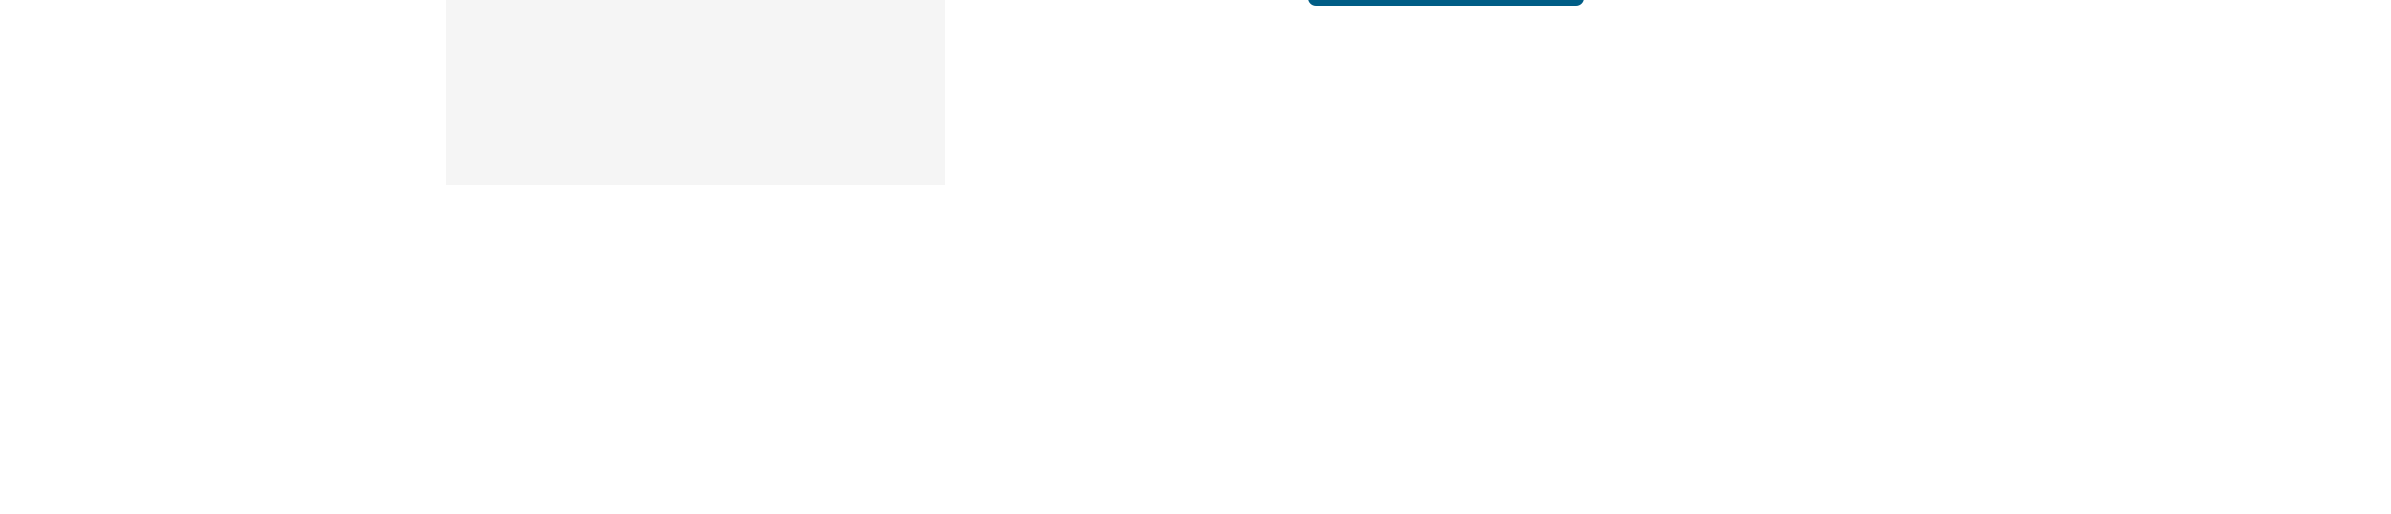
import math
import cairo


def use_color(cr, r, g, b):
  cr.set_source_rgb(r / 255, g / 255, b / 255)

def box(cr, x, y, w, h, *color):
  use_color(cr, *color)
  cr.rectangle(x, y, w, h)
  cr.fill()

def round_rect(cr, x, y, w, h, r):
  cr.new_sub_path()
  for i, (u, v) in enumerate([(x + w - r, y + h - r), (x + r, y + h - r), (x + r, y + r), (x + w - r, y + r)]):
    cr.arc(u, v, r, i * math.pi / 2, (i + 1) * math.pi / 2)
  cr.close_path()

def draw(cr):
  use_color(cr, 255, 255, 255)
  cr.paint()
  box(cr, 446, 0, 499, 185, 245, 245, 245)
  use_color(cr, 0, 93, 134)
  round_rect(cr, 1308, -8, 276, 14, 8)
  cr.fill()


surface = cairo.ImageSurface(cairo.FORMAT_RGB24, 2391, 514)
cr = cairo.Context(surface)
options = cairo.FontOptions()
options.set_hint_metrics(cairo.HINT_METRICS_OFF)
options.set_hint_style(cairo.HINT_STYLE_NONE)
cr.set_font_options(options)
cr.set_miter_limit(4)
draw(cr)
surface.write_to_png("out.png")
